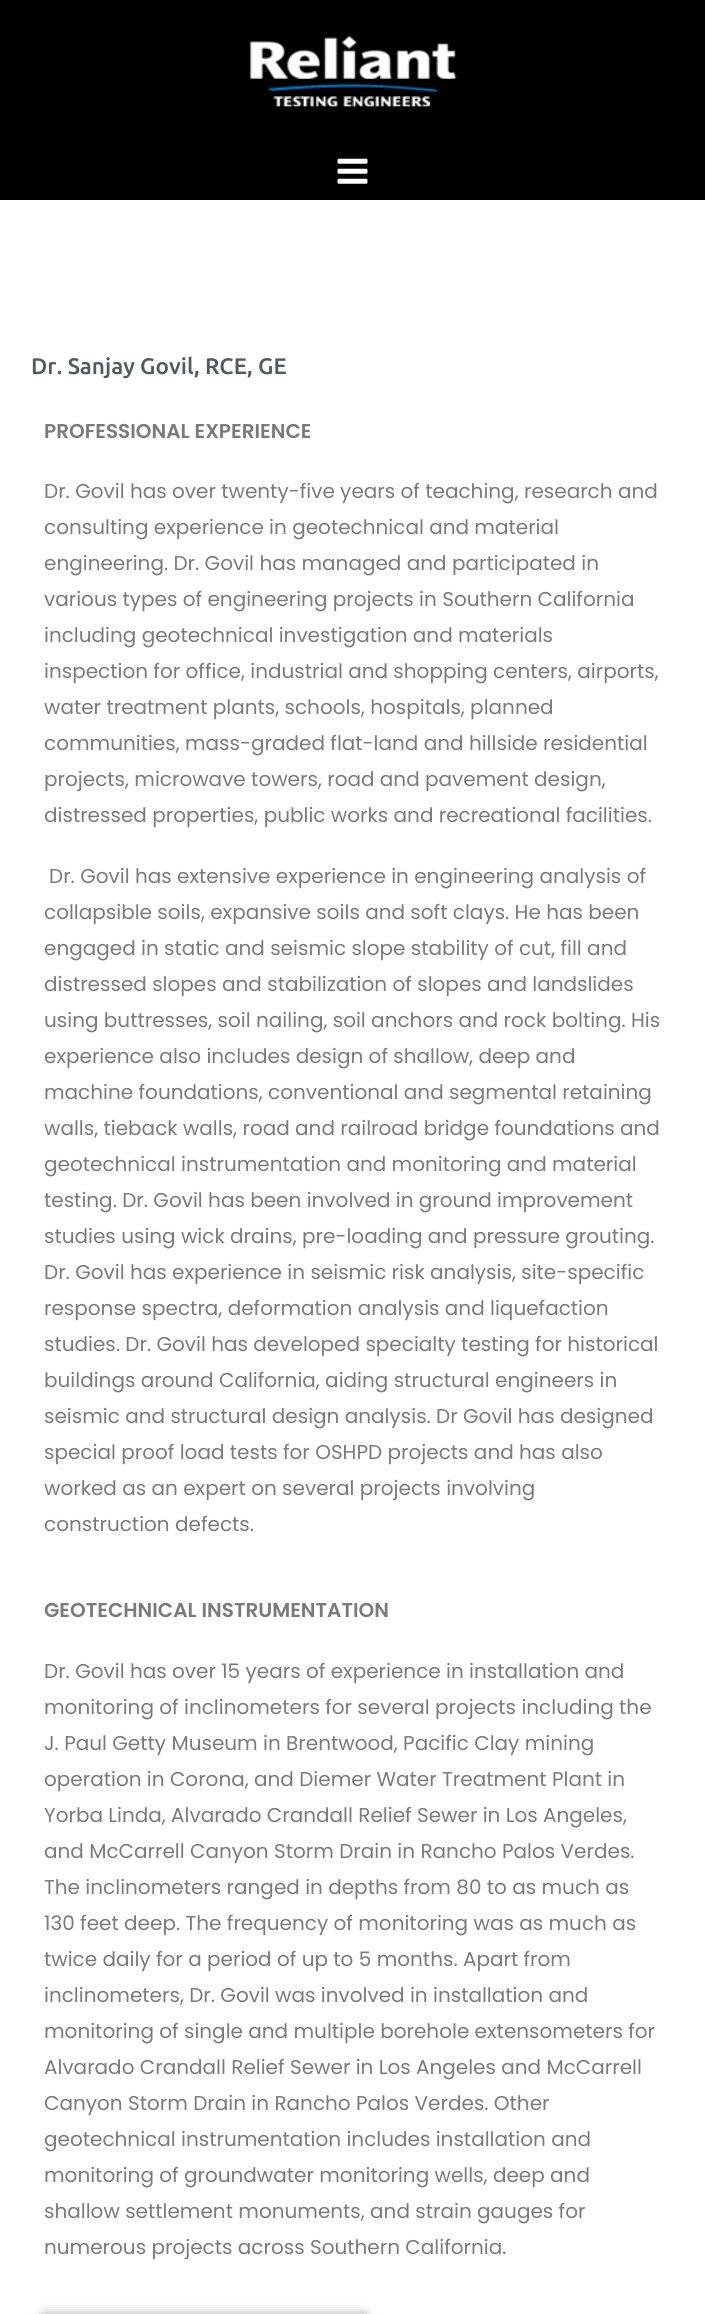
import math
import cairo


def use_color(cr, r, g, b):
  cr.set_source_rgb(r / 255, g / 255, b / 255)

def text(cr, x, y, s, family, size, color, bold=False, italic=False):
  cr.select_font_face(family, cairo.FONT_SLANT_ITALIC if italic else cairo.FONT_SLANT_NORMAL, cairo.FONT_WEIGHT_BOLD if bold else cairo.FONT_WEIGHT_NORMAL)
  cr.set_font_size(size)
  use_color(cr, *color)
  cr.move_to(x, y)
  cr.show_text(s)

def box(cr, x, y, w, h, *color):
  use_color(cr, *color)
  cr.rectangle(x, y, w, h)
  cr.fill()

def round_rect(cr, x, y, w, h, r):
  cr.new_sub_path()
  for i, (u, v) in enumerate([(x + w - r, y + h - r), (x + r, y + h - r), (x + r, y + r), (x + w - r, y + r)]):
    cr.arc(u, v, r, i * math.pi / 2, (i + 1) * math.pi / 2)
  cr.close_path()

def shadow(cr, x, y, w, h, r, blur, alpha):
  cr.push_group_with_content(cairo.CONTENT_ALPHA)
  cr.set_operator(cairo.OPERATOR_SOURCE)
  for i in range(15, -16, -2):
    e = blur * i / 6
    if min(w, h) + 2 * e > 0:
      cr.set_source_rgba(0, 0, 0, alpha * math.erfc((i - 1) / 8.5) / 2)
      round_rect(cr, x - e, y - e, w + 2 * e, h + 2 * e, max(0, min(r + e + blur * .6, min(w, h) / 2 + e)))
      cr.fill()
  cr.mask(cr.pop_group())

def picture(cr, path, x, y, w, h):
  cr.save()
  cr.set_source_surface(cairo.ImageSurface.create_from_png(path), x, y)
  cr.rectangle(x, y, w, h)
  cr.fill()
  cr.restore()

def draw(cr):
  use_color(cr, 255, 255, 255)
  cr.paint()
  box(cr, 0, 0, 705, 200, 0, 0, 0)
  picture(cr, "img_01.png", 249, 36, 208, 71)
  picture(cr, "img_02.png", 337, 158, 31, 26)
  use_color(cr, 0, 0, 0)
  shadow(cr, 44, 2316, 321, 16, 0, 6, 0.5)
  text(cr, 31, 374, "Dr. Sanjay Govil, RCE, GE", "Ubuntu Medium", 22.5, (84, 89, 95))
  text(cr, 44, 438, "PROFESSIONAL EXPERIENCE", "Poppins SemiBold", 20, (122, 122, 122))
  text(cr, 44, 498, "Dr. Govil has over twenty-five years of teaching, research and", "Poppins", 20, (122, 122, 122))
  text(cr, 44, 534, "consulting experience in geotechnical and material", "Poppins", 20, (122, 122, 122))
  text(cr, 44, 570, "engineering. Dr. Govil has managed and participated in", "Poppins", 20, (122, 122, 122))
  text(cr, 44, 606, "various types of engineering projects in Southern California", "Poppins", 20, (122, 122, 122))
  text(cr, 44, 642, "including geotechnical investigation and materials", "Poppins", 20, (122, 122, 122))
  text(cr, 44, 678, "inspection for office, industrial and shopping centers, airports,", "Poppins", 20, (122, 122, 122))
  text(cr, 44, 714, "water treatment plants, schools, hospitals, planned", "Poppins", 20, (122, 122, 122))
  text(cr, 44, 750, "communities, mass-graded flat-land and hillside residential", "Poppins", 20, (122, 122, 122))
  text(cr, 44, 786, "projects, microwave towers, road and pavement design,", "Poppins", 20, (122, 122, 122))
  text(cr, 44, 822, "distressed properties, public works and recreational facilities.", "Poppins", 20, (122, 122, 122))
  text(cr, 49, 883, "Dr. Govil has extensive experience in engineering analysis of", "Poppins", 20, (122, 122, 122))
  text(cr, 44, 919, "collapsible soils, expansive soils and soft clays. He has been", "Poppins", 20, (122, 122, 122))
  text(cr, 44, 955, "engaged in static and seismic slope stability of cut, fill and", "Poppins", 20, (122, 122, 122))
  text(cr, 44, 991, "distressed slopes and stabilization of slopes and landslides", "Poppins", 20, (122, 122, 122))
  text(cr, 44, 1027, "using buttresses, soil nailing, soil anchors and rock bolting. His", "Poppins", 20, (122, 122, 122))
  text(cr, 44, 1063, "experience also includes design of shallow, deep and", "Poppins", 20, (122, 122, 122))
  text(cr, 44, 1099, "machine foundations, conventional and segmental retaining", "Poppins", 20, (122, 122, 122))
  text(cr, 44, 1135, "walls, tieback walls, road and railroad bridge foundations and", "Poppins", 20, (122, 122, 122))
  text(cr, 44, 1171, "geotechnical instrumentation and monitoring and material", "Poppins", 20, (122, 122, 122))
  text(cr, 44, 1207, "testing. Dr. Govil has been involved in ground improvement", "Poppins", 20, (122, 122, 122))
  text(cr, 44, 1243, "studies using wick drains, pre-loading and pressure grouting.", "Poppins", 20, (122, 122, 122))
  text(cr, 44, 1279, "Dr. Govil has experience in seismic risk analysis, site-specific", "Poppins", 20, (122, 122, 122))
  text(cr, 44, 1315, "response spectra, deformation analysis and liquefaction", "Poppins", 20, (122, 122, 122))
  text(cr, 44, 1351, "studies. Dr. Govil has developed specialty testing for historical", "Poppins", 20, (122, 122, 122))
  text(cr, 44, 1387, "buildings around California, aiding structural engineers in", "Poppins", 20, (122, 122, 122))
  text(cr, 44, 1423, "seismic and structural design analysis. Dr Govil has designed", "Poppins", 20, (122, 122, 122))
  text(cr, 44, 1459, "special proof load tests for OSHPD projects and has also", "Poppins", 20, (122, 122, 122))
  text(cr, 44, 1495, "worked as an expert on several projects involving", "Poppins", 20, (122, 122, 122))
  text(cr, 44, 1531, "construction defects.", "Poppins", 20, (122, 122, 122))
  text(cr, 44, 1617, "GEOTECHNICAL INSTRUMENTATION", "Poppins SemiBold", 20, (122, 122, 122))
  text(cr, 44, 1678, "Dr. Govil has over 15 years of experience in installation and", "Poppins", 20, (122, 122, 122))
  text(cr, 44, 1714, "monitoring of inclinometers for several projects including the", "Poppins", 20, (122, 122, 122))
  text(cr, 44, 1750, "J. Paul Getty Museum in Brentwood, Pacific Clay mining", "Poppins", 20, (122, 122, 122))
  text(cr, 44, 1786, "operation in Corona, and Diemer Water Treatment Plant in", "Poppins", 20, (122, 122, 122))
  text(cr, 44, 1822, "Yorba Linda, Alvarado Crandall Relief Sewer in Los Angeles,", "Poppins", 20, (122, 122, 122))
  text(cr, 44, 1858, "and McCarrell Canyon Storm Drain in Rancho Palos Verdes.", "Poppins", 20, (122, 122, 122))
  text(cr, 44, 1894, "The inclinometers ranged in depths from 80 to as much as", "Poppins", 20, (122, 122, 122))
  text(cr, 44, 1930, "130 feet deep. The frequency of monitoring was as much as", "Poppins", 20, (122, 122, 122))
  text(cr, 44, 1966, "twice daily for a period of up to 5 months. Apart from", "Poppins", 20, (122, 122, 122))
  text(cr, 44, 2002, "inclinometers, Dr. Govil was involved in installation and", "Poppins", 20, (122, 122, 122))
  text(cr, 44, 2038, "monitoring of single and multiple borehole extensometers for", "Poppins", 20, (122, 122, 122))
  text(cr, 44, 2074, "Alvarado Crandall Relief Sewer in Los Angeles and McCarrell", "Poppins", 20, (122, 122, 122))
  text(cr, 44, 2110, "Canyon Storm Drain in Rancho Palos Verdes. Other", "Poppins", 20, (122, 122, 122))
  text(cr, 44, 2146, "geotechnical instrumentation includes installation and", "Poppins", 20, (122, 122, 122))
  text(cr, 44, 2182, "monitoring of groundwater monitoring wells, deep and", "Poppins", 20, (122, 122, 122))
  text(cr, 44, 2218, "shallow settlement monuments, and strain gauges for", "Poppins", 20, (122, 122, 122))
  text(cr, 44, 2254, "numerous projects across Southern California.", "Poppins", 20, (122, 122, 122))


surface = cairo.ImageSurface(cairo.FORMAT_RGB24, 705, 2314)
cr = cairo.Context(surface)
options = cairo.FontOptions()
options.set_hint_metrics(cairo.HINT_METRICS_OFF)
options.set_hint_style(cairo.HINT_STYLE_NONE)
cr.set_font_options(options)
cr.set_miter_limit(4)
draw(cr)
surface.write_to_png("out.png")
